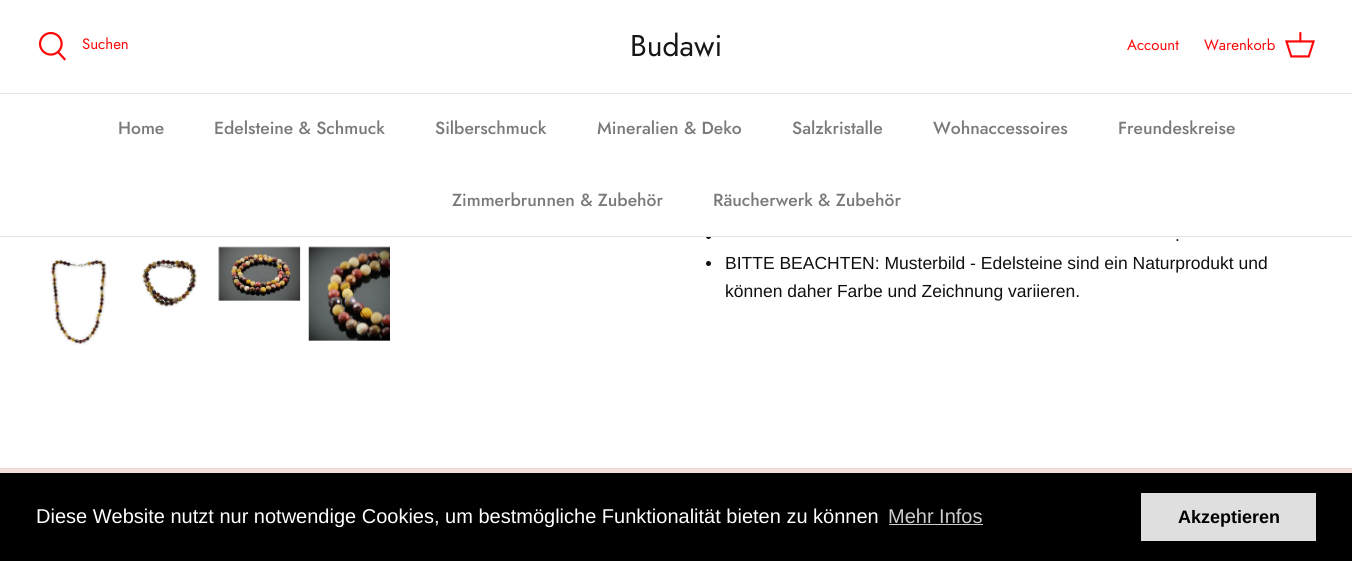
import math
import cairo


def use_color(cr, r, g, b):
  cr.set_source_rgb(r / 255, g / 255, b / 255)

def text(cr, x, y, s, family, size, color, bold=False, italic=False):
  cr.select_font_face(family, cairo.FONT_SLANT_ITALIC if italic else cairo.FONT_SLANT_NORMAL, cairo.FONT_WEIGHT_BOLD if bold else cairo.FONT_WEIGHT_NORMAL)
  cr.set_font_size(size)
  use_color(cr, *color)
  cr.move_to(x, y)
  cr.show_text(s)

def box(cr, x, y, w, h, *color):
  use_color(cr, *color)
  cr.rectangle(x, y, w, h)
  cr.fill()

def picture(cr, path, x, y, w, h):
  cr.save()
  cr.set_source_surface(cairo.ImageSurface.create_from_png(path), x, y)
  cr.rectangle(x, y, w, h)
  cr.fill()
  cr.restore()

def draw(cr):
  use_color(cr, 255, 255, 255)
  cr.paint()
  box(cr, 0, 93, 1352, 1, 223, 227, 232)
  picture(cr, "img_01.png", 38, 31, 28, 30)
  picture(cr, "img_02.png", 1285, 32, 30, 26)
  use_color(cr, 15, 17, 17)
  cr.arc(708.5, 236.5, 2.5, 0, 2 * math.pi)
  cr.fill()
  box(cr, 0, 236, 1352, 1, 223, 227, 232)
  box(cr, 706, 234, 5, 2, 255, 255, 255)
  picture(cr, "img_03.png", 50, 258, 57, 87)
  picture(cr, "img_04.png", 141, 259, 56, 49)
  picture(cr, "img_05.png", 218, 246, 83, 55)
  picture(cr, "img_06.png", 308, 246, 82, 95)
  use_color(cr, 15, 17, 17)
  cr.arc(708.5, 263.5, 2.5, 0, 2 * math.pi)
  cr.fill()
  box(cr, 0, 469, 1352, 4, 244, 223, 219)
  box(cr, 0, 468, 1352, 1, 236, 214, 209)
  box(cr, 0, 473, 1352, 88, 0, 0, 0)
  box(cr, 889, 524, 94, 1, 204, 204, 204)
  box(cr, 1141, 493, 175, 48, 223, 223, 223)
  text(cr, 82, 49, "Suchen", "Jost", 15, (251, 8, 8))
  text(cr, 630, 56, "Budawi", "Jost", 30, (23, 23, 23))
  text(cr, 1127, 50, "Account", "Jost", 15, (251, 8, 8))
  text(cr, 1204, 50, "Warenkorb", "Jost", 15, (251, 8, 8))
  text(cr, 118, 134, "Home", "Jost Medium", 17.5, (120, 122, 124))
  text(cr, 214, 134, "Edelsteine & Schmuck", "Jost Medium", 17.5, (120, 122, 124))
  text(cr, 435, 134, "Silberschmuck", "Jost Medium", 17.5, (120, 122, 124))
  text(cr, 597, 134, "Mineralien & Deko", "Jost Medium", 17.5, (120, 122, 124))
  text(cr, 792, 134, "Salzkristalle", "Jost Medium", 17.5, (120, 122, 124))
  text(cr, 933, 134, "Wohnaccessoires", "Jost Medium", 17.5, (120, 122, 124))
  text(cr, 1118, 134, "Freundeskreise", "Jost Medium", 17.5, (120, 122, 124))
  text(cr, 452, 206, "Zimmerbrunnen & Zubehör", "Jost Medium", 17.5, (120, 122, 124))
  text(cr, 713, 206, "Räucherwerk & Zubehör", "Jost Medium", 17.5, (120, 122, 124))
  text(cr, 1175, 241, ".", "Liberation Sans", 17.5, (15, 17, 17))
  text(cr, 725, 269, "BITTE BEACHTEN: Musterbild - Edelsteine sind ein Naturprodukt und", "Liberation Sans", 17.5, (15, 17, 17))
  text(cr, 725, 297, "können daher Farbe und Zeichnung variieren.", "Liberation Sans", 17.5, (15, 17, 17))
  text(cr, 36, 523, "Diese Website nutzt nur notwendige Cookies, um bestmögliche Funktionalität bieten zu können", "Liberation Sans", 20, (255, 255, 255))
  text(cr, 888, 523, "Mehr Infos", "Liberation Sans", 20, (204, 204, 204))
  text(cr, 1178, 523, "Akzeptieren", "Liberation Sans", 18, (0, 0, 0), bold=True)


surface = cairo.ImageSurface(cairo.FORMAT_RGB24, 1352, 561)
cr = cairo.Context(surface)
options = cairo.FontOptions()
options.set_hint_metrics(cairo.HINT_METRICS_OFF)
options.set_hint_style(cairo.HINT_STYLE_NONE)
cr.set_font_options(options)
cr.set_miter_limit(4)
draw(cr)
surface.write_to_png("out.png")
